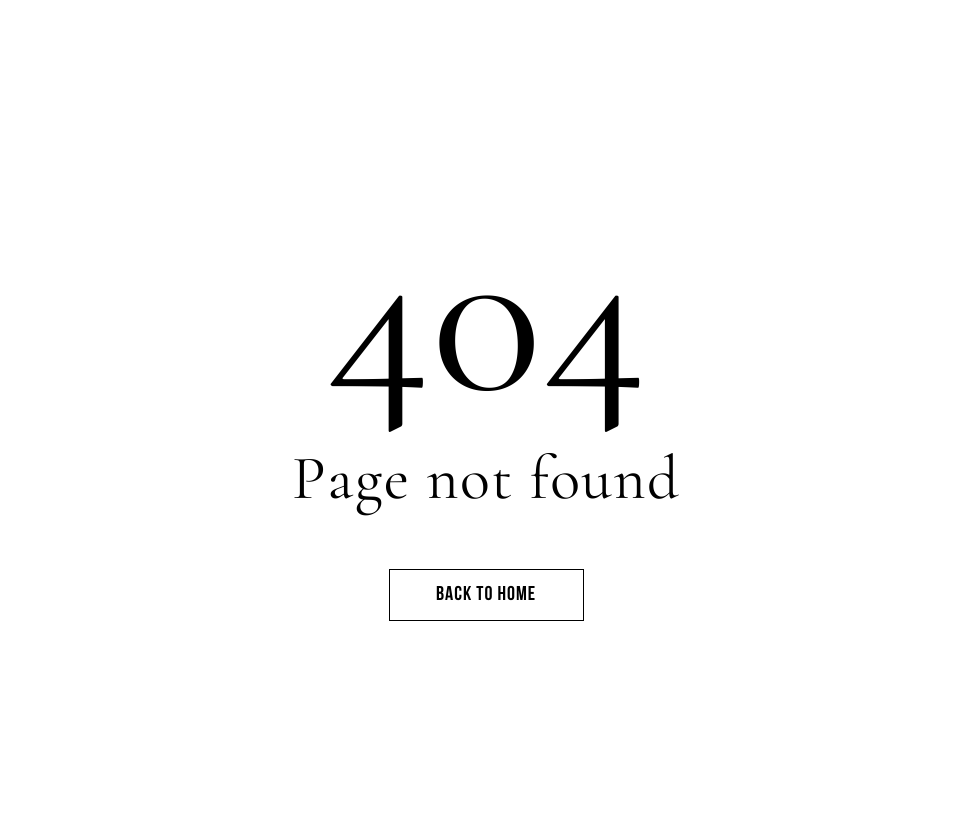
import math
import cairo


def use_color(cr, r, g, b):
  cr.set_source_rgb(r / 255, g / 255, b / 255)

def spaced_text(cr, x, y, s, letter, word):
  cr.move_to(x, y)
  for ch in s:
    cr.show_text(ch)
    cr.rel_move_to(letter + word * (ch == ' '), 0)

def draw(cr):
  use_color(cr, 255, 255, 255)
  cr.paint()
  cr.rectangle(389.5, 569.5, 194, 51)
  use_color(cr, 0, 0, 0)
  cr.set_line_width(1)
  cr.stroke()
  cr.select_font_face("Cormorant Garamond")
  cr.set_font_size(232)
  spaced_text(cr, 326, 388, "404", 0.5, 0)
  cr.set_font_size(62)
  spaced_text(cr, 292, 498, "Page not found", 1.5, 0)
  cr.select_font_face("Bebas Neue", cairo.FONT_SLANT_NORMAL, cairo.FONT_WEIGHT_BOLD)
  cr.set_font_size(20)
  spaced_text(cr, 436, 600, "BACK TO HOME", 1, 0)


surface = cairo.ImageSurface(cairo.FORMAT_RGB24, 973, 840)
cr = cairo.Context(surface)
options = cairo.FontOptions()
options.set_hint_metrics(cairo.HINT_METRICS_OFF)
options.set_hint_style(cairo.HINT_STYLE_NONE)
cr.set_font_options(options)
cr.set_miter_limit(4)
draw(cr)
surface.write_to_png("out.png")
